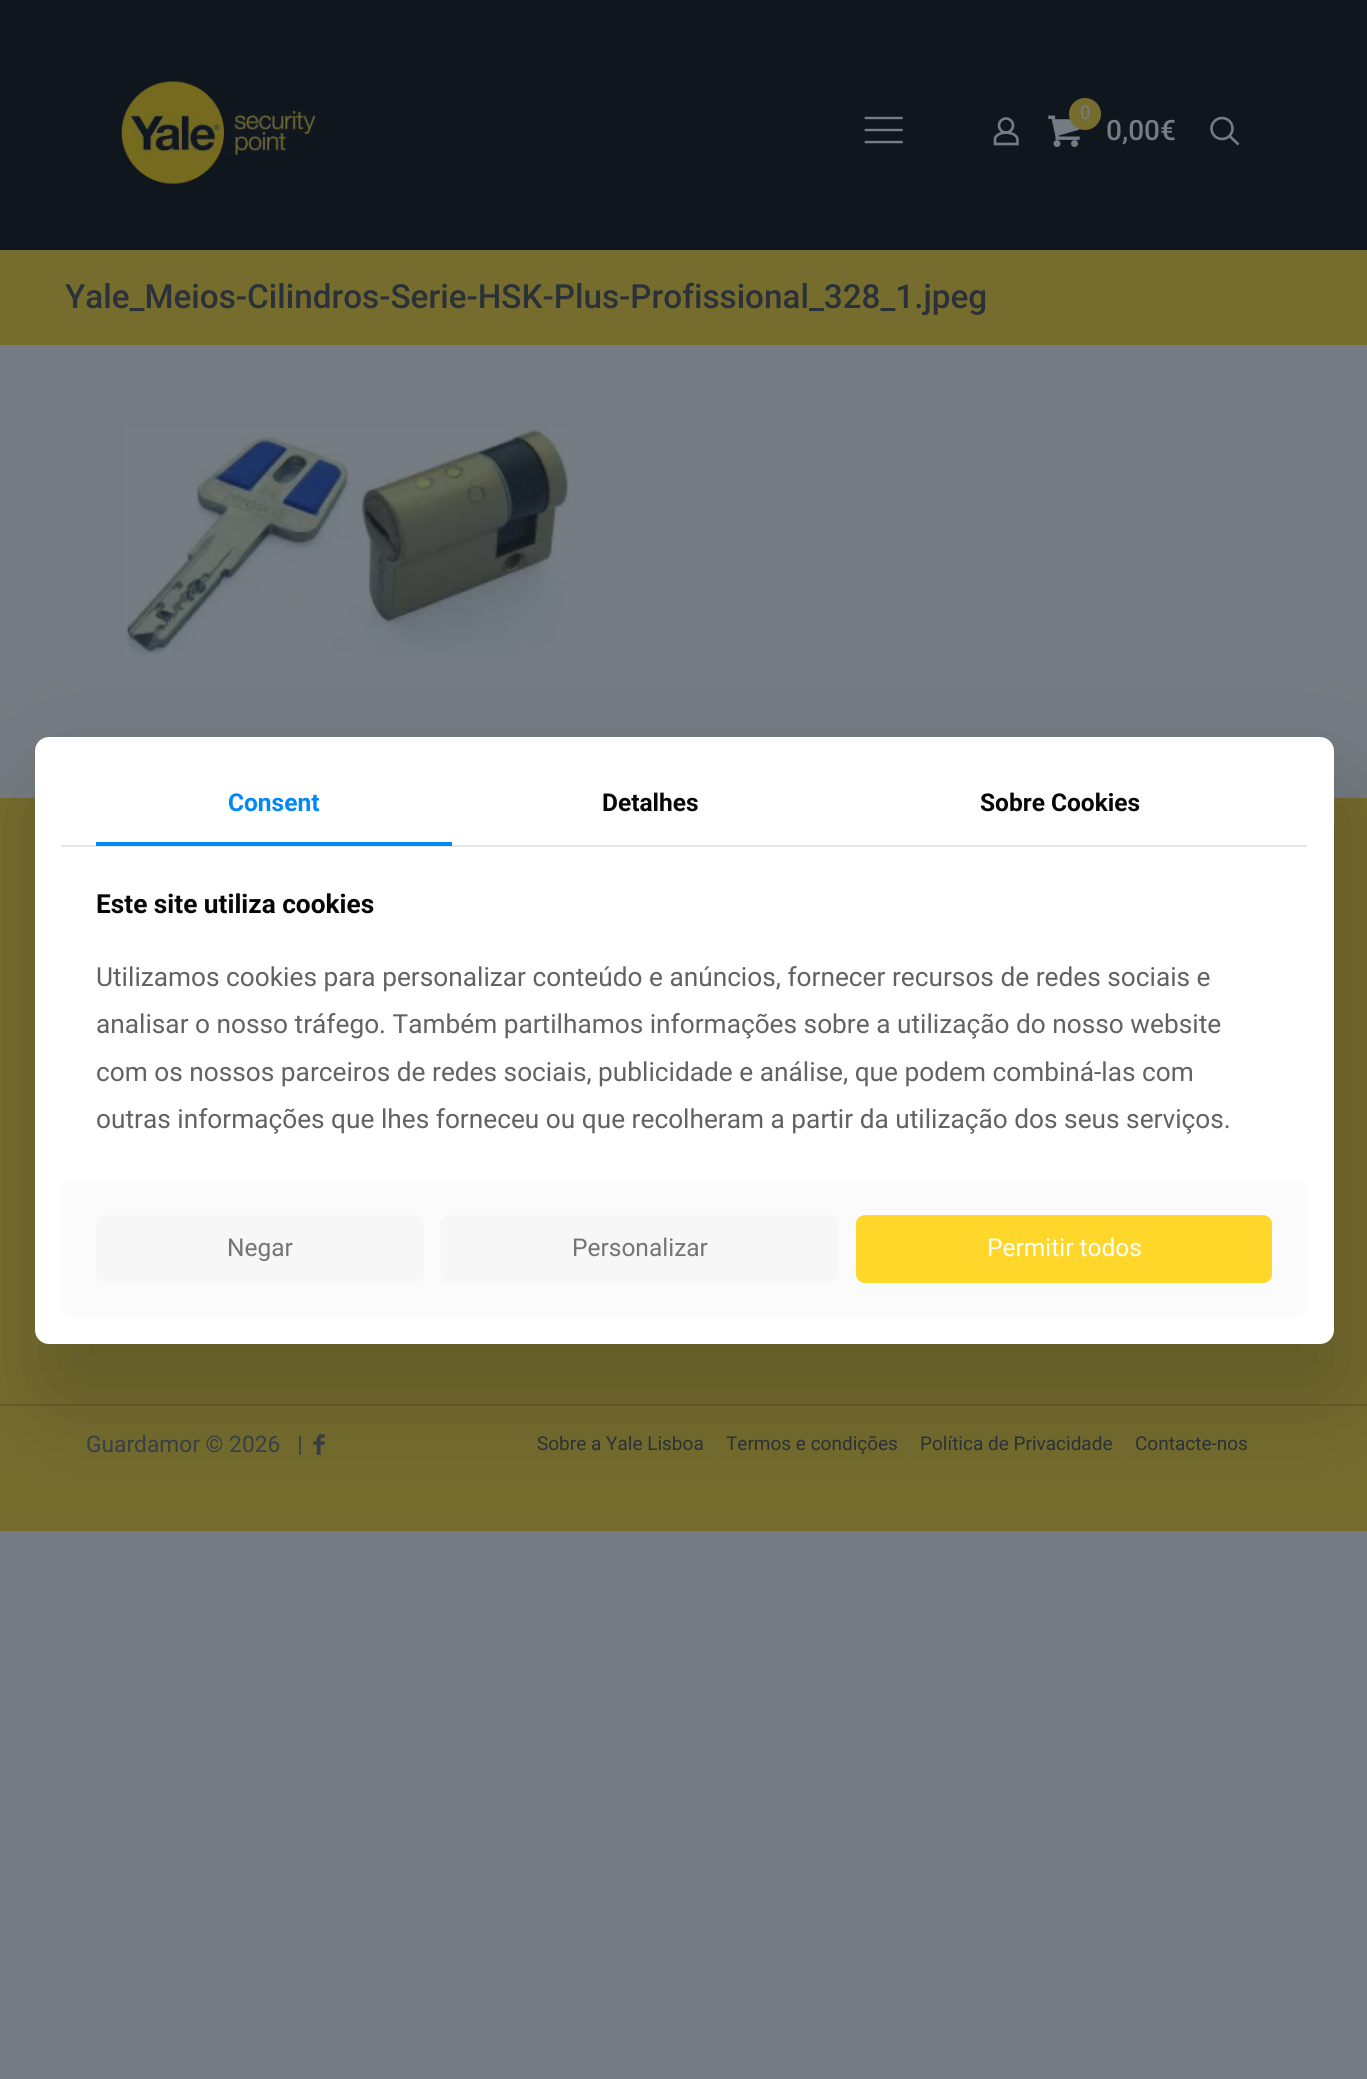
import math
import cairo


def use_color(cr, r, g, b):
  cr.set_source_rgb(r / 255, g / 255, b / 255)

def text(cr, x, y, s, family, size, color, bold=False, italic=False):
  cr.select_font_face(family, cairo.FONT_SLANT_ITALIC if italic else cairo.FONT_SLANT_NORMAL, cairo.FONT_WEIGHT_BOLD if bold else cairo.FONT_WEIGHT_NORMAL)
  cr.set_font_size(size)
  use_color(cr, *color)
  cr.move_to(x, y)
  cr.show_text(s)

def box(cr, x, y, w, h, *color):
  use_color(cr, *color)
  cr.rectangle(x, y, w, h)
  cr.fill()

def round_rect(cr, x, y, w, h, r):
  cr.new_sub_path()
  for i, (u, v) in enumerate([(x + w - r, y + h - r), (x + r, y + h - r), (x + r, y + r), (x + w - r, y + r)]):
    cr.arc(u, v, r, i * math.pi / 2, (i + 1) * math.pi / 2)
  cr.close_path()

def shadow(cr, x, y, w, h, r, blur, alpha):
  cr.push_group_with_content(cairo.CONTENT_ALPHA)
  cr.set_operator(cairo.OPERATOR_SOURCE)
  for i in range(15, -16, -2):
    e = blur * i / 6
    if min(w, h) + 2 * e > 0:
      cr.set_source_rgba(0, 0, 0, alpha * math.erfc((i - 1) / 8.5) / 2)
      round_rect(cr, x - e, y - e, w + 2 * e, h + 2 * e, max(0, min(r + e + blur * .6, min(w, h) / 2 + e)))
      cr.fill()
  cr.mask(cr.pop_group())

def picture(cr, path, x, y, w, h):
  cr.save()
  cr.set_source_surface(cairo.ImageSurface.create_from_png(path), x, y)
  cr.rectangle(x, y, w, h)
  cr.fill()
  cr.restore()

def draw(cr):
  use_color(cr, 116, 123, 130)
  cr.paint()
  box(cr, 0, 0, 1367, 250, 15, 22, 29)
  picture(cr, "img_01.png", 121, 81, 201, 103)
  picture(cr, "img_02.png", 864, 116, 39, 28)
  cr.arc(1006, 125.5, 7, 0, 2 * math.pi)
  use_color(cr, 117, 124, 131)
  cr.set_line_width(2.6)
  cr.stroke()
  cr.new_path()
  cr.move_to(1017.5, 140)
  cr.line_to(1017.5, 144)
  cr.line_to(995, 144)
  cr.line_to(995, 138.5)
  cr.curve_to(997.5, 130, 1017.5, 131, 1017.5, 140)
  cr.close_path()
  cr.stroke()
  picture(cr, "img_03.png", 1048, 115, 32, 32)
  use_color(cr, 117, 108, 46)
  cr.arc(1085, 114, 16, 0, 2 * math.pi)
  cr.fill()
  cr.arc(1222, 128.5, 10.5, 0, 2 * math.pi)
  use_color(cr, 117, 124, 131)
  cr.stroke()
  cr.new_path()
  cr.move_to(1229.5, 136)
  cr.line_to(1238.5, 144.5)
  cr.stroke()
  box(cr, 0, 250, 1367, 95, 117, 108, 46)
  picture(cr, "img_04.png", 125, 426, 444, 230)
  box(cr, 0, 798, 1367, 733, 117, 108, 46)
  box(cr, 0, 1404, 1367, 2, 102, 95, 43)
  picture(cr, "img_05.png", 313, 1434, 12, 21)
  box(cr, 714, 1426, 2, 37, 117, 109, 54)
  box(cr, 908, 1426, 2, 37, 117, 109, 54)
  box(cr, 1124, 1426, 2, 37, 117, 109, 54)
  use_color(cr, 0, 0, 0)
  shadow(cr, 46, 789, 1298, 608, 14, 52.5, 0.18)
  use_color(cr, 255, 255, 255)
  round_rect(cr, 35, 737, 1299, 607, 14)
  cr.fill()
  box(cr, 61, 845, 1246, 2, 230, 230, 231)
  box(cr, 96, 842, 356, 4, 0, 137, 247)
  use_color(cr, 251, 251, 251)
  round_rect(cr, 61, 1180, 1246, 138, 14)
  cr.fill()
  use_color(cr, 247, 247, 247)
  round_rect(cr, 96, 1215, 328, 68, 9)
  cr.fill()
  round_rect(cr, 441, 1215, 397, 68, 9)
  cr.fill()
  use_color(cr, 255, 214, 42)
  round_rect(cr, 856, 1215, 416, 68, 9)
  cr.fill()
  text(cr, 1080, 119, "0", "Roboto", 19, (117, 124, 131))
  text(cr, 1106, 140, "0,00€", "Roboto Medium", 28, (117, 124, 131))
  text(cr, 65, 308, "Yale_Meios-Cilindros-Serie-HSK-Plus-Profissional_328_1.jpeg", "Roboto Medium", 33.25, (42, 49, 56))
  text(cr, 86, 1452, "Guardamor © 2026   |", "Roboto", 22.75, (55, 63, 72))
  text(cr, 537, 1450, "Sobre a Yale Lisboa", "Roboto", 19, (42, 49, 56))
  text(cr, 726, 1450, "Termos e condições", "Roboto", 19, (42, 49, 56))
  text(cr, 920, 1450, "Política de Privacidade", "Roboto", 19, (42, 49, 56))
  text(cr, 1135, 1450, "Contacte-nos", "Roboto", 19, (42, 49, 56))
  text(cr, 228, 811, "Consent", "Roboto", 24.5, (0, 137, 247), bold=True)
  text(cr, 602, 811, "Detalhes", "Roboto", 24.5, (7, 7, 10), bold=True)
  text(cr, 980, 811, "Sobre Cookies", "Roboto", 24.5, (7, 7, 10), bold=True)
  text(cr, 96, 913, "Este site utiliza cookies", "Roboto", 26.25, (7, 7, 10), bold=True)
  text(cr, 96, 986, "Utilizamos cookies para personalizar conteúdo e anúncios, fornecer recursos de redes sociais e", "Roboto", 26.25, (98, 98, 98))
  text(cr, 96, 1033, "analisar o nosso tráfego. Também partilhamos informações sobre a utilização do nosso website", "Roboto", 26.25, (98, 98, 98))
  text(cr, 96, 1081, "com os nossos parceiros de redes sociais, publicidade e análise, que podem combiná-las com", "Roboto", 26.25, (98, 98, 98))
  text(cr, 96, 1128, "outras informações que lhes forneceu ou que recolheram a partir da utilização dos seus serviços.", "Roboto", 26.25, (98, 98, 98))
  text(cr, 227, 1256, "Negar", "Roboto", 24.5, (116, 116, 116))
  text(cr, 572, 1256, "Personalizar", "Roboto", 24.5, (116, 116, 116))
  text(cr, 987, 1256, "Permitir todos", "Roboto", 24.5, (255, 255, 255))


surface = cairo.ImageSurface(cairo.FORMAT_RGB24, 1367, 2079)
cr = cairo.Context(surface)
options = cairo.FontOptions()
options.set_hint_metrics(cairo.HINT_METRICS_OFF)
options.set_hint_style(cairo.HINT_STYLE_NONE)
cr.set_font_options(options)
cr.set_miter_limit(4)
draw(cr)
surface.write_to_png("out.png")
